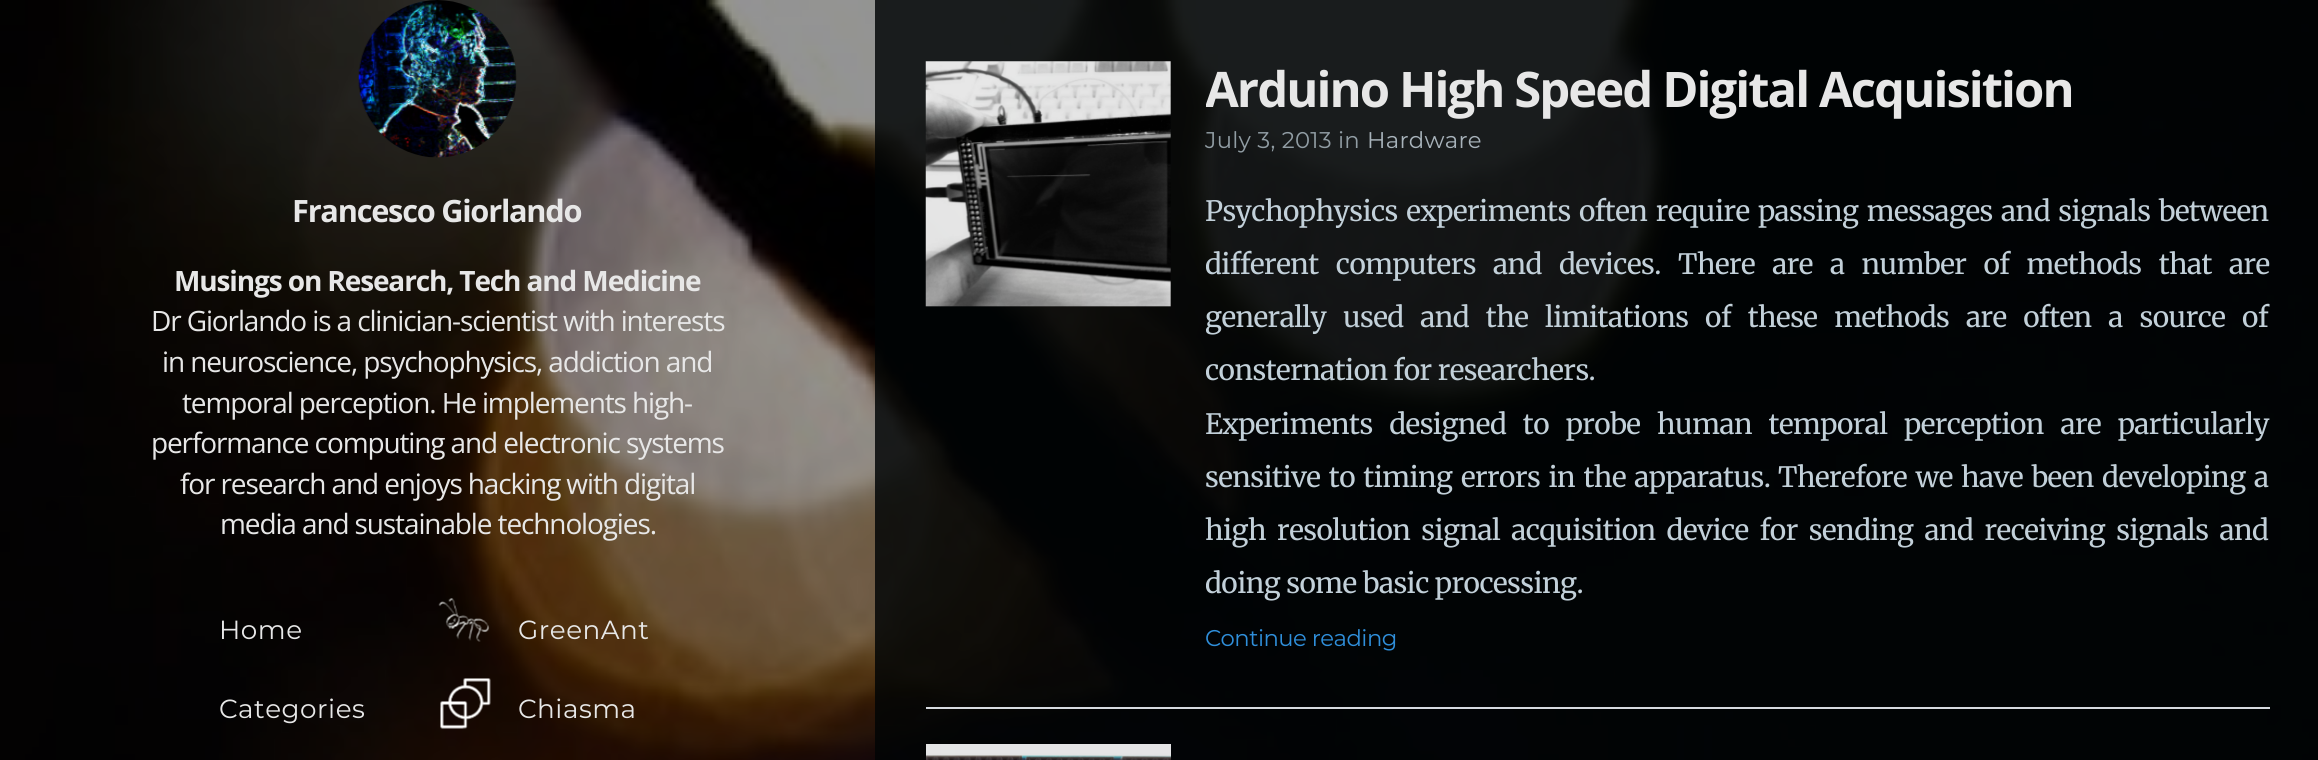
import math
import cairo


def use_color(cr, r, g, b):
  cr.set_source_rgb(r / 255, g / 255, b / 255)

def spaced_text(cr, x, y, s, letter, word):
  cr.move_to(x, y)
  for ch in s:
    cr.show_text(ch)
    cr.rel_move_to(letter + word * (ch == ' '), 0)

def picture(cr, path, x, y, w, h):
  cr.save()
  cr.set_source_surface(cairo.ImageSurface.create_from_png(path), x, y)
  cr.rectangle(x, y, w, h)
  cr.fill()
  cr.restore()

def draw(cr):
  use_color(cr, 255, 255, 255)
  cr.paint()
  picture(cr, "img_01.png", 0, 0, 2318, 760)
  cr.set_source_rgba(0, 0, 0, 0.42)
  cr.rectangle(0, 0, 875, 760)
  cr.fill()
  picture(cr, "img_02.png", 358, 0, 159, 158)
  picture(cr, "img_03.png", 438, 598, 52, 44)
  picture(cr, "img_04.png", 440, 678, 51, 51)
  cr.set_source_rgba(0.004, 0.016, 0.02, 0.9)
  cr.rectangle(875, 0, 1443, 760)
  cr.fill()
  cr.set_source_rgba(0.933, 0.949, 0.973, 0.9)
  cr.rectangle(926, 707, 1344, 2)
  cr.fill()
  picture(cr, "img_05.png", 925, 61, 246, 246)
  picture(cr, "img_06.png", 926, 744, 245, 16)
  cr.select_font_face("Open Sans", cairo.FONT_SLANT_NORMAL, cairo.FONT_WEIGHT_BOLD)
  cr.set_font_size(30.75)
  use_color(cr, 231, 231, 231)
  spaced_text(cr, 292, 222, "Francesco Giorlando", -1.25, 0)
  cr.set_font_size(28)
  spaced_text(cr, 174, 291, "Musings on Research, Tech and Medicine", -1.12, 0)
  cr.select_font_face("Open Sans")
  spaced_text(cr, 151, 331, "Dr Giorlando is a clinician-scientist with interests", -1.12, 0)
  spaced_text(cr, 162, 372, "in neuroscience, psychophysics, addiction and", -1.12, 0)
  spaced_text(cr, 182, 413, "temporal perception. He implements high-", -1.12, 0)
  spaced_text(cr, 151, 453, "performance computing and electronic systems", -1.12, 0)
  spaced_text(cr, 180, 494, "for research and enjoys hacking with digital", -1.12, 0)
  spaced_text(cr, 220, 534, "media and sustainable technologies.", -1.12, 0)
  cr.select_font_face("Montserrat Thin")
  cr.set_font_size(26.25)
  spaced_text(cr, 219, 639, "Home", 0.5, 0)
  spaced_text(cr, 219, 718, "Categories", 0.5, 0)
  spaced_text(cr, 518, 639, "GreenAnt", 0.5, 0)
  spaced_text(cr, 518, 718, "Chiasma", 0.5, 0)
  cr.save()
  cr.rectangle(1206, 53, 1064, 71)
  cr.clip()
  cr.select_font_face("Open Sans", cairo.FONT_SLANT_NORMAL, cairo.FONT_WEIGHT_BOLD)
  cr.set_font_size(49)
  spaced_text(cr, 1205, 107, "Arduino High Speed Digital Acquisition", -1.95, 0)
  cr.restore()
  cr.set_font_size(22.75)
  use_color(cr, 145, 157, 164)
  spaced_text(cr, 1205, 148, "July 3, 2013 in", 0.25, 0)
  use_color(cr, 168, 179, 187)
  spaced_text(cr, 1367, 148, "Hardware", 0.25, 0)
  cr.select_font_face("Merriweather")
  cr.set_font_size(28)
  use_color(cr, 194, 208, 217)
  spaced_text(cr, 1205, 221, "Psychophysics experiments often require passing messages and signals between", -0.53, 2.25)
  cr.save()
  cr.rectangle(1206, 184, 1064, 523)
  cr.clip()
  spaced_text(cr, 1205, 274, "different computers and devices.", -0.53, 11)
  cr.restore()
  spaced_text(cr, 1678, 274, "There are a number of methods that are", -0.53, 11)
  cr.save()
  cr.rectangle(1206, 184, 1064, 523)
  cr.clip()
  spaced_text(cr, 1205, 327, "generally used and the limitations of these methods are often a source of", -0.53, 10.6)
  spaced_text(cr, 1205, 380, "consternation for researchers.", -0.53, 0)
  cr.restore()
  spaced_text(cr, 1205, 434, "Experiments designed to probe human temporal perception are particularly", -0.53, 10.5)
  spaced_text(cr, 1205, 487, "sensitive to timing errors in the apparatus.", -0.53, 2.25)
  spaced_text(cr, 1778, 487, "Therefore we have been developing a", -0.53, 2.25)
  spaced_text(cr, 1205, 540, "high resolution signal acquisition device for sending and receiving signals and", -0.53, 5)
  cr.save()
  cr.rectangle(1206, 184, 1064, 523)
  cr.clip()
  spaced_text(cr, 1205, 593, "doing some basic processing.", -0.53, 0)
  cr.restore()
  cr.select_font_face("Montserrat Thin")
  cr.set_font_size(22.75)
  use_color(cr, 47, 143, 219)
  spaced_text(cr, 1205, 646, "Continue reading", -0.53, 0)


surface = cairo.ImageSurface(cairo.FORMAT_RGB24, 2318, 760)
cr = cairo.Context(surface)
options = cairo.FontOptions()
options.set_hint_metrics(cairo.HINT_METRICS_OFF)
options.set_hint_style(cairo.HINT_STYLE_NONE)
cr.set_font_options(options)
cr.set_miter_limit(4)
draw(cr)
surface.write_to_png("out.png")
